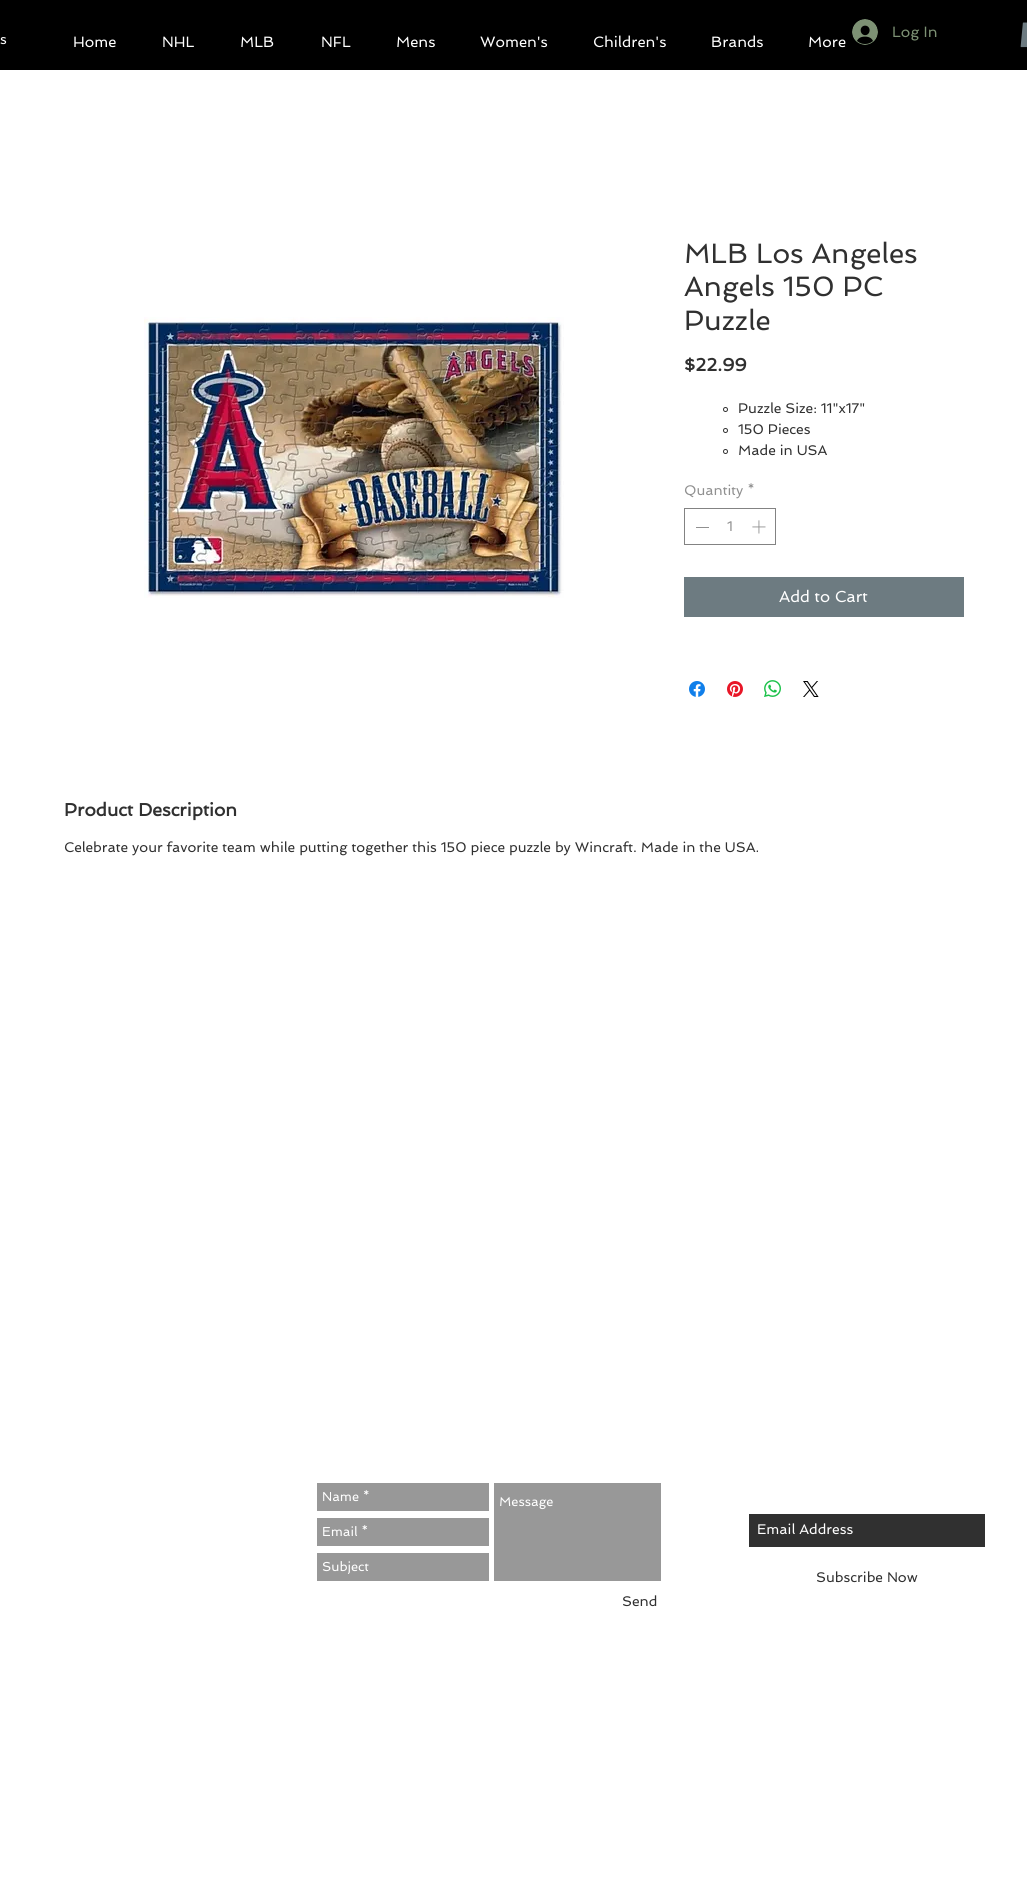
import math
import cairo


def use_color(cr, r, g, b):
  cr.set_source_rgb(r / 255, g / 255, b / 255)

def text(cr, x, y, s, family, size, color, bold=False, italic=False):
  cr.select_font_face(family, cairo.FONT_SLANT_ITALIC if italic else cairo.FONT_SLANT_NORMAL, cairo.FONT_WEIGHT_BOLD if bold else cairo.FONT_WEIGHT_NORMAL)
  cr.set_font_size(size)
  use_color(cr, *color)
  cr.move_to(x, y)
  cr.show_text(s)

def spaced_text(cr, x, y, s, letter, word):
  cr.move_to(x, y)
  for ch in s:
    cr.show_text(ch)
    cr.rel_move_to(letter + word * (ch == ' '), 0)

def box(cr, x, y, w, h, *color):
  use_color(cr, *color)
  cr.rectangle(x, y, w, h)
  cr.fill()

def picture(cr, path, x, y, w, h):
  cr.save()
  cr.set_source_surface(cairo.ImageSurface.create_from_png(path), x, y)
  cr.rectangle(x, y, w, h)
  cr.fill()
  cr.restore()

def draw(cr):
  use_color(cr, 255, 255, 255)
  cr.paint()
  box(cr, 0, 0, 1027, 70, 0, 0, 0)
  picture(cr, "img_01.png", 852, 19, 26, 26)
  picture(cr, "img_02.png", 1020, 22, 7, 26)
  picture(cr, "img_03.png", 144, 317, 420, 281)
  cr.arc(725.5, 409.5, 2, 0, 2 * math.pi)
  use_color(cr, 48, 48, 48)
  cr.set_line_width(1)
  cr.stroke()
  cr.arc(725.5, 430.5, 2, 0, 2 * math.pi)
  cr.stroke()
  cr.arc(725.5, 451.5, 2, 0, 2 * math.pi)
  cr.stroke()
  cr.rectangle(684.5, 508.5, 91, 36)
  use_color(cr, 131, 131, 131)
  cr.stroke()
  box(cr, 696, 527, 13, 1, 144, 144, 144)
  picture(cr, "img_04.png", 752, 520, 14, 14)
  box(cr, 684, 577, 280, 40, 109, 123, 129)
  picture(cr, "img_05.png", 689, 681, 16, 16)
  picture(cr, "img_06.png", 727, 681, 16, 16)
  picture(cr, "img_07.png", 764, 680, 17, 17)
  picture(cr, "img_08.png", 803, 681, 16, 16)
  box(cr, 317, 1483, 172, 28, 152, 152, 152)
  box(cr, 494, 1483, 167, 98, 152, 152, 152)
  box(cr, 317, 1518, 172, 28, 152, 152, 152)
  box(cr, 317, 1553, 172, 28, 152, 152, 152)
  box(cr, 749, 1514, 236, 33, 48, 48, 48)
  cr.select_font_face("Spinnaker")
  cr.set_font_size(14)
  use_color(cr, 255, 255, 255)
  spaced_text(cr, 0, 44, "s", 3, 0)
  text(cr, 73, 47, "Home", "Spinnaker", 15, (255, 255, 255))
  text(cr, 162, 47, "NHL", "Spinnaker", 15, (255, 255, 255))
  text(cr, 240, 47, "MLB", "Spinnaker", 15, (255, 255, 255))
  text(cr, 321, 47, "NFL", "Spinnaker", 15, (255, 255, 255))
  text(cr, 396, 47, "Mens", "Spinnaker", 15, (255, 255, 255))
  text(cr, 480, 47, "Women's", "Spinnaker", 15, (255, 255, 255))
  text(cr, 593, 47, "Children's", "Spinnaker", 15, (255, 255, 255))
  text(cr, 711, 47, "Brands", "Spinnaker", 15, (255, 255, 255))
  text(cr, 808, 47, "More", "Spinnaker", 15, (255, 255, 255))
  text(cr, 892, 37, "Log In", "Spinnaker", 15, (125, 145, 116))
  text(cr, 684, 263, "MLB Los Angeles", "Spinnaker", 28, (48, 48, 48))
  text(cr, 684, 296, "Angels 150 PC", "Spinnaker", 28, (48, 48, 48))
  text(cr, 684, 330, "Puzzle", "Spinnaker", 28, (48, 48, 48))
  text(cr, 684, 371, "$22.99", "Spinnaker", 18, (48, 48, 48), bold=True)
  text(cr, 738, 413, "Puzzle Size: 11\"x17\"", "Spinnaker", 14, (48, 48, 48))
  text(cr, 738, 434, "150 Pieces", "Spinnaker", 14, (48, 48, 48))
  text(cr, 738, 455, "Made in USA", "Spinnaker", 14, (48, 48, 48))
  text(cr, 684, 495, "Quantity *", "Spinnaker", 14, (144, 144, 144))
  text(cr, 727, 531, "1", "Spinnaker", 14, (144, 144, 144))
  text(cr, 779, 602, "Add to Cart", "Spinnaker", 16, (255, 255, 255))
  text(cr, 64, 816, "Product Description", "Spinnaker", 18, (48, 48, 48), bold=True)
  text(cr, 64, 852, "Celebrate your favorite team while putting together this 150 piece puzzle by Wincraft. Made in the USA.", "Spinnaker", 14, (48, 48, 48))
  text(cr, 322, 1501, "Name *", "Spinnaker", 13, (255, 255, 255))
  text(cr, 499, 1506, "Message", "Spinnaker", 13, (255, 255, 255))
  text(cr, 322, 1536, "Email *", "Spinnaker", 13, (255, 255, 255))
  text(cr, 322, 1571, "Subject", "Spinnaker", 13, (255, 255, 255))
  text(cr, 622, 1606, "Send", "Spinnaker", 14, (48, 48, 48))
  text(cr, 757, 1534, "Email Address", "Spinnaker", 14, (255, 255, 255))
  text(cr, 816, 1582, "Subscribe Now", "Spinnaker", 14, (48, 48, 48))


surface = cairo.ImageSurface(cairo.FORMAT_RGB24, 1027, 1885)
cr = cairo.Context(surface)
options = cairo.FontOptions()
options.set_hint_metrics(cairo.HINT_METRICS_OFF)
options.set_hint_style(cairo.HINT_STYLE_NONE)
cr.set_font_options(options)
cr.set_miter_limit(4)
draw(cr)
surface.write_to_png("out.png")
